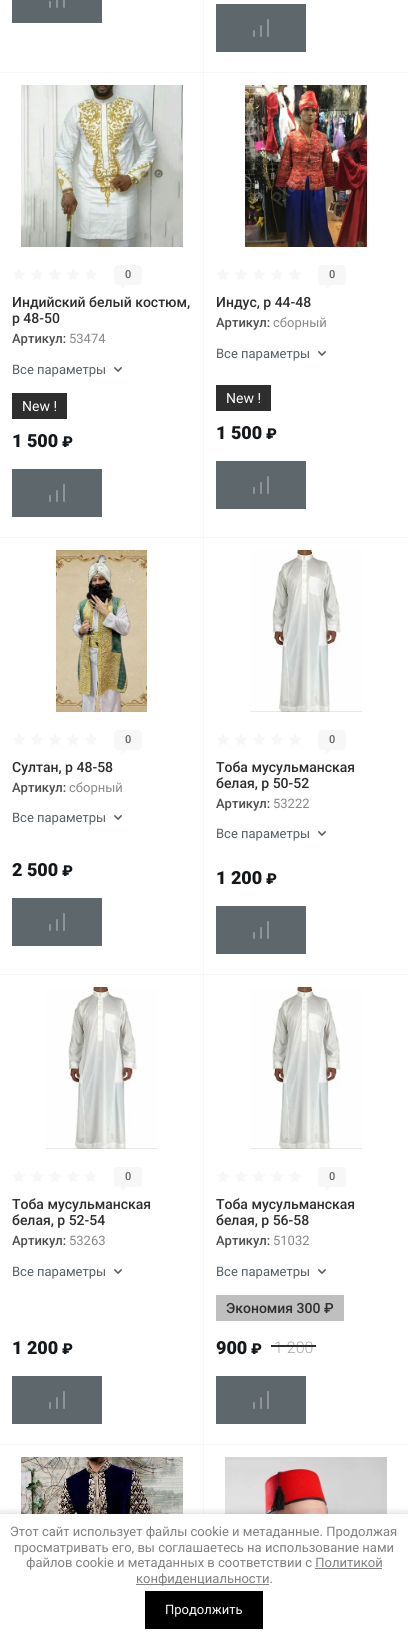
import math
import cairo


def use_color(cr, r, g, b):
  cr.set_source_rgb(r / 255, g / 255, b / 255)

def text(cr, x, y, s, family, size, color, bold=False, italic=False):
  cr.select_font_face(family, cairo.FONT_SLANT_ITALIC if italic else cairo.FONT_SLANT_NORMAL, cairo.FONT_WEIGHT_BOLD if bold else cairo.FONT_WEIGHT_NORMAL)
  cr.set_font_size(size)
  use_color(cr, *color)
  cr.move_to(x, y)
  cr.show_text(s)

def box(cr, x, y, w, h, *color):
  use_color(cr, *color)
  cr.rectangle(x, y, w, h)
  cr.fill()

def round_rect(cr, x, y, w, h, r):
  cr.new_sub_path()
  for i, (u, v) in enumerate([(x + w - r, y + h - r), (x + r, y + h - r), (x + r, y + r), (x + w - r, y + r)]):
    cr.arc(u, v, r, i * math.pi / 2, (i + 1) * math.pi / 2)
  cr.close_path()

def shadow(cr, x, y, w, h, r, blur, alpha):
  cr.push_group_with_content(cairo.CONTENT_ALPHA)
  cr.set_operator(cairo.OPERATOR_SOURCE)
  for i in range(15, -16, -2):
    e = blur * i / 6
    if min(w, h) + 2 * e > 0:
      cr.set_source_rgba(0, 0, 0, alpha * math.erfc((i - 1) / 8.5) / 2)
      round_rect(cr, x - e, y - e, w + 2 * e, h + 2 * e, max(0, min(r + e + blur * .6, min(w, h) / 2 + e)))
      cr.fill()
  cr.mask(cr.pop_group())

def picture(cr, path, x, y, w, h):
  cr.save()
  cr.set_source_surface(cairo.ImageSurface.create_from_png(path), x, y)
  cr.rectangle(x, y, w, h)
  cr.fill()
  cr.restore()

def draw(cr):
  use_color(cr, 255, 255, 255)
  cr.paint()
  box(cr, 203, 0, 1, 1514, 247, 247, 247)
  box(cr, 0, 72, 408, 1, 247, 247, 247)
  box(cr, 12, 0, 90, 23, 94, 104, 108)
  picture(cr, "img_01.png", 49, 0, 16, 8)
  box(cr, 216, 4, 90, 48, 94, 104, 108)
  picture(cr, "img_02.png", 253, 19, 16, 18)
  box(cr, 0, 537, 408, 1, 247, 247, 247)
  picture(cr, "img_03.png", 21, 85, 162, 162)
  picture(cr, "img_04.png", 13, 269, 84, 11)
  picture(cr, "img_05.png", 114, 265, 28, 24)
  picture(cr, "img_06.png", 114, 367, 8, 5)
  box(cr, 12, 393, 55, 26, 46, 46, 46)
  box(cr, 12, 469, 90, 48, 94, 104, 108)
  picture(cr, "img_02.png", 49, 484, 16, 18)
  picture(cr, "img_07.png", 245, 85, 122, 162)
  picture(cr, "img_04.png", 217, 269, 84, 11)
  picture(cr, "img_05.png", 318, 265, 28, 24)
  picture(cr, "img_06.png", 318, 351, 8, 5)
  box(cr, 216, 385, 55, 26, 46, 46, 46)
  box(cr, 216, 461, 90, 48, 94, 104, 108)
  picture(cr, "img_02.png", 253, 476, 16, 18)
  box(cr, 0, 974, 408, 1, 247, 247, 247)
  picture(cr, "img_08.png", 56, 550, 91, 162)
  picture(cr, "img_04.png", 13, 734, 84, 11)
  picture(cr, "img_05.png", 114, 730, 28, 24)
  picture(cr, "img_06.png", 114, 815, 8, 5)
  box(cr, 12, 898, 90, 48, 94, 104, 108)
  picture(cr, "img_02.png", 49, 913, 16, 18)
  picture(cr, "img_09.png", 250, 550, 112, 162)
  picture(cr, "img_04.png", 217, 734, 84, 11)
  picture(cr, "img_05.png", 318, 730, 28, 24)
  picture(cr, "img_06.png", 318, 831, 8, 5)
  box(cr, 216, 906, 90, 48, 94, 104, 108)
  picture(cr, "img_02.png", 253, 921, 16, 18)
  box(cr, 0, 1444, 408, 1, 247, 247, 247)
  picture(cr, "img_10.png", 46, 987, 112, 162)
  picture(cr, "img_04.png", 13, 1171, 84, 11)
  picture(cr, "img_05.png", 114, 1167, 28, 24)
  picture(cr, "img_06.png", 114, 1269, 8, 5)
  box(cr, 12, 1376, 90, 48, 94, 104, 108)
  picture(cr, "img_02.png", 49, 1391, 16, 18)
  picture(cr, "img_10.png", 250, 987, 112, 162)
  picture(cr, "img_04.png", 217, 1171, 84, 11)
  picture(cr, "img_05.png", 318, 1167, 28, 24)
  picture(cr, "img_06.png", 318, 1269, 8, 5)
  box(cr, 216, 1295, 128, 26, 191, 191, 191)
  box(cr, 216, 1376, 90, 48, 94, 104, 108)
  picture(cr, "img_02.png", 253, 1391, 16, 18)
  picture(cr, "img_11.png", 21, 1457, 162, 57)
  picture(cr, "img_12.png", 225, 1457, 162, 57)
  use_color(cr, 0, 0, 0)
  shadow(cr, 0, 1515, 408, 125, 0, 5, 0.23)
  box(cr, 0, 1514, 408, 125, 255, 255, 255)
  box(cr, 315, 1568, 67, 1, 128, 128, 128)
  box(cr, 136, 1584, 133, 1, 128, 128, 128)
  box(cr, 145, 1591, 118, 38, 0, 0, 0)
  text(cr, 125, 278, "0", "Roboto Medium", 11, (99, 99, 99))
  text(cr, 12, 307, "Индийский белый костюм,", "Roboto Medium", 14, (46, 46, 46))
  text(cr, 12, 323, "р 48-50", "Roboto Medium", 14, (46, 46, 46))
  text(cr, 12, 343, "Артикул:", "Roboto Medium", 13, (77, 77, 77))
  text(cr, 69, 343, "53474", "Roboto", 13, (136, 136, 136))
  text(cr, 12, 374, "Все параметры", "Roboto", 13, (85, 96, 100))
  text(cr, 22, 411, "New !", "Roboto", 14, (255, 255, 255))
  text(cr, 12, 447, "1 500", "Roboto Black", 18, (20, 24, 27))
  text(cr, 62, 447, "₽", "Roboto Black", 15, (20, 24, 27))
  text(cr, 329, 278, "0", "Roboto Medium", 11, (99, 99, 99))
  text(cr, 216, 307, "Индус, р 44-48", "Roboto Medium", 14, (46, 46, 46))
  text(cr, 216, 327, "Артикул:", "Roboto Medium", 13, (77, 77, 77))
  text(cr, 273, 327, "сборный", "Roboto", 13, (136, 136, 136))
  text(cr, 216, 358, "Все параметры", "Roboto", 13, (85, 96, 100))
  text(cr, 226, 403, "New !", "Roboto", 14, (255, 255, 255))
  text(cr, 216, 439, "1 500", "Roboto Black", 18, (20, 24, 27))
  text(cr, 266, 439, "₽", "Roboto Black", 15, (20, 24, 27))
  text(cr, 125, 743, "0", "Roboto Medium", 11, (99, 99, 99))
  text(cr, 12, 772, "Султан, р 48-58", "Roboto Medium", 14, (46, 46, 46))
  text(cr, 12, 792, "Артикул:", "Roboto Medium", 13, (77, 77, 77))
  text(cr, 69, 792, "сборный", "Roboto", 13, (136, 136, 136))
  text(cr, 12, 822, "Все параметры", "Roboto", 13, (85, 96, 100))
  text(cr, 12, 876, "2 500", "Roboto Black", 18, (20, 24, 27))
  text(cr, 62, 876, "₽", "Roboto Black", 15, (20, 24, 27))
  text(cr, 329, 743, "0", "Roboto Medium", 11, (99, 99, 99))
  text(cr, 216, 772, "Тоба мусульманская", "Roboto Medium", 14, (46, 46, 46))
  text(cr, 216, 788, "белая, р 50-52", "Roboto Medium", 14, (46, 46, 46))
  text(cr, 216, 808, "Артикул:", "Roboto Medium", 13, (77, 77, 77))
  text(cr, 273, 808, "53222", "Roboto", 13, (136, 136, 136))
  text(cr, 216, 838, "Все параметры", "Roboto", 13, (85, 96, 100))
  text(cr, 216, 884, "1 200", "Roboto Black", 18, (20, 24, 27))
  text(cr, 266, 884, "₽", "Roboto Black", 15, (20, 24, 27))
  text(cr, 125, 1180, "0", "Roboto Medium", 11, (99, 99, 99))
  text(cr, 12, 1209, "Тоба мусульманская", "Roboto Medium", 14, (46, 46, 46))
  text(cr, 12, 1225, "белая, р 52-54", "Roboto Medium", 14, (46, 46, 46))
  text(cr, 12, 1245, "Артикул:", "Roboto Medium", 13, (77, 77, 77))
  text(cr, 69, 1245, "53263", "Roboto", 13, (136, 136, 136))
  text(cr, 12, 1276, "Все параметры", "Roboto", 13, (85, 96, 100))
  text(cr, 12, 1354, "1 200", "Roboto Black", 18, (20, 24, 27))
  text(cr, 62, 1354, "₽", "Roboto Black", 15, (20, 24, 27))
  text(cr, 329, 1180, "0", "Roboto Medium", 11, (99, 99, 99))
  text(cr, 216, 1209, "Тоба мусульманская", "Roboto Medium", 14, (46, 46, 46))
  text(cr, 216, 1225, "белая, р 56-58", "Roboto Medium", 14, (46, 46, 46))
  text(cr, 216, 1245, "Артикул:", "Roboto Medium", 13, (77, 77, 77))
  text(cr, 273, 1245, "51032", "Roboto", 13, (136, 136, 136))
  text(cr, 216, 1276, "Все параметры", "Roboto", 13, (85, 96, 100))
  text(cr, 226, 1313, "Экономия 300 ₽", "Roboto Medium", 14, (46, 46, 46))
  text(cr, 216, 1354, "900", "Roboto Black", 18, (20, 24, 27))
  text(cr, 251, 1354, "₽", "Roboto Black", 15, (20, 24, 27))
  text(cr, 274, 1353, "1 200", "Roboto Light", 16, (168, 168, 168))
  box(cr, 271, 1345, 45, 2, 46, 46, 46)
  text(cr, 10, 1536, "Этот сайт использует файлы cookie и метаданные. Продолжая", "Roboto", 13, (128, 128, 128))
  text(cr, 14, 1552, "просматривать его, вы соглашаетесь на использование нами", "Roboto", 13, (128, 128, 128))
  text(cr, 26, 1567, "файлов cookie и метаданных в соответствии с Политикой", "Roboto", 13, (128, 128, 128))
  text(cr, 136, 1583, "конфиденциальности.", "Roboto", 13, (128, 128, 128))
  text(cr, 165, 1614, "Продолжить", "Roboto", 13, (255, 255, 255))


surface = cairo.ImageSurface(cairo.FORMAT_RGB24, 408, 1639)
cr = cairo.Context(surface)
options = cairo.FontOptions()
options.set_hint_metrics(cairo.HINT_METRICS_OFF)
options.set_hint_style(cairo.HINT_STYLE_NONE)
cr.set_font_options(options)
cr.set_miter_limit(4)
draw(cr)
surface.write_to_png("out.png")
